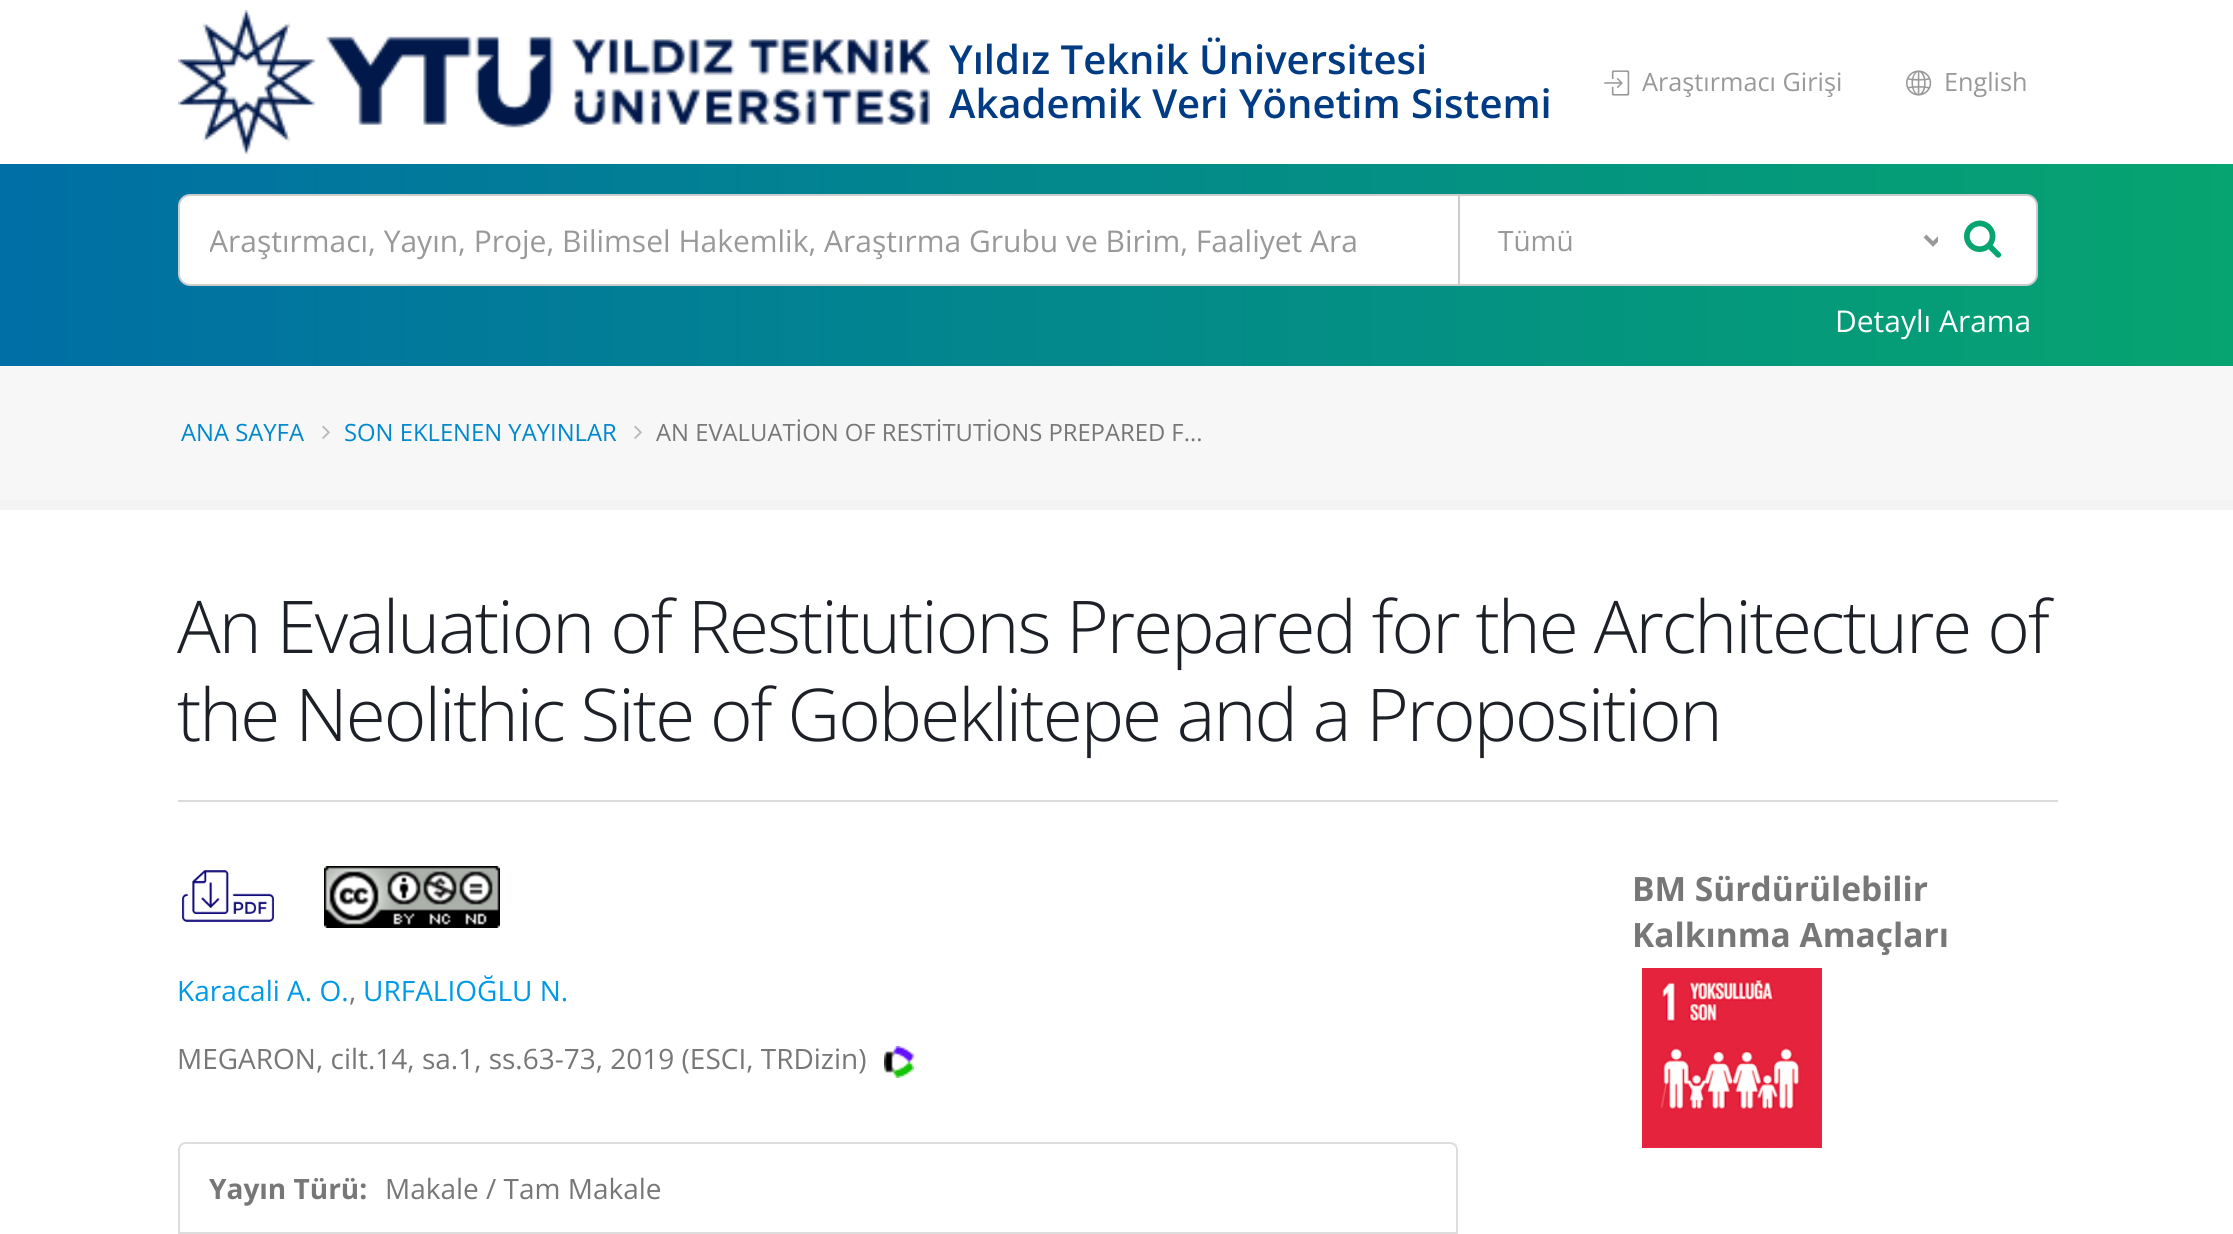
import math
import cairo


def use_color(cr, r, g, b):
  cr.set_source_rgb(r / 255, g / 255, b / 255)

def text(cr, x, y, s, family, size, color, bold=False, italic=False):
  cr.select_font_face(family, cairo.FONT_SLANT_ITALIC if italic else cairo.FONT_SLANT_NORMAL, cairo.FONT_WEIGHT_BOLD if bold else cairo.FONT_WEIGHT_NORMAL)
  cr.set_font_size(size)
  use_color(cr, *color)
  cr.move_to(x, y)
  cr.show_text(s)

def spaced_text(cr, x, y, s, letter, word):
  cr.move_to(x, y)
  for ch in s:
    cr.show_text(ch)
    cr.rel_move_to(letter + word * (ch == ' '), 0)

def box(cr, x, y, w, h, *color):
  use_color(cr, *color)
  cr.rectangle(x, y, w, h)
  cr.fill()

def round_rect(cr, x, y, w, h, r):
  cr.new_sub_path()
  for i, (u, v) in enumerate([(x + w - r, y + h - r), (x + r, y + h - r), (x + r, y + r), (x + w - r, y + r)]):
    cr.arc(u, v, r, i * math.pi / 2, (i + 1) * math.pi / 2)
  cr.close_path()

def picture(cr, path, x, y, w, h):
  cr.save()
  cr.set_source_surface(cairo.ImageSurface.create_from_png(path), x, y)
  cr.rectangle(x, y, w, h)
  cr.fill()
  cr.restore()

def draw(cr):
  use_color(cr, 255, 255, 255)
  cr.paint()
  picture(cr, "img_01.png", 178, 10, 752, 144)
  picture(cr, "img_02.png", 1604, 70, 26, 26)
  picture(cr, "img_03.png", 1906, 70, 26, 26)
  gradient = cairo.LinearGradient(0, 265, 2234, 265)
  gradient.add_color_stop_rgba(0, 0, 0.435, 0.647, 1)
  gradient.add_color_stop_rgba(1, 0.024, 0.643, 0.439, 1)
  cr.set_source(gradient)
  cr.rectangle(0, 164, 2233, 202)
  cr.fill()
  use_color(cr, 255, 255, 255)
  round_rect(cr, 179, 195, 1858, 90, 11)
  cr.fill_preserve()
  use_color(cr, 204, 204, 204)
  cr.stroke()
  cr.rectangle(1459, 195, 492, 90)
  cr.stroke()
  cr.new_path()
  cr.move_to(1925, 236)
  cr.line_to(1933, 244)
  cr.line_to(1941, 236)
  use_color(cr, 153, 153, 153)
  cr.set_line_width(4)
  cr.stroke()
  use_color(cr, 255, 255, 255)
  round_rect(cr, 1938, 196, 90, 88, 8)
  cr.fill()
  picture(cr, "img_04.png", 1964, 220, 38, 38)
  box(cr, 0, 366, 2233, 134, 247, 247, 247)
  box(cr, 0, 500, 2233, 10, 244, 244, 244)
  picture(cr, "img_05.png", 322, 425, 8, 14)
  picture(cr, "img_05.png", 634, 425, 8, 14)
  box(cr, 178, 800, 1880, 2, 219, 219, 219)
  picture(cr, "img_06.png", 1642, 968, 180, 180)
  picture(cr, "img_07.png", 182, 870, 92, 52)
  picture(cr, "img_08.png", 324, 866, 176, 62)
  picture(cr, "img_09.png", 884, 1046, 30, 32)
  cr.new_path()
  cr.move_to(186, 1143)
  cr.line_to(1450, 1143)
  cr.curve_to(1454, 1143, 1457, 1146, 1457, 1150)
  cr.line_to(1457, 1233)
  cr.line_to(179, 1233)
  cr.line_to(179, 1150)
  cr.curve_to(179, 1146, 182, 1143, 186, 1143)
  cr.close_path()
  use_color(cr, 221, 221, 221)
  cr.set_line_width(2)
  cr.stroke()
  text(cr, 949, 74, "Yıldız Teknik Üniversitesi", "Open Sans SemiBold", 40, (0, 59, 131))
  text(cr, 949, 118, "Akademik Veri Yönetim Sistemi", "Open Sans SemiBold", 40, (0, 59, 131))
  text(cr, 1642, 91, "Araştırmacı Girişi", "Open Sans", 25.25, (153, 153, 153))
  text(cr, 1944, 91, "English", "Open Sans", 25.25, (153, 153, 153))
  cr.save()
  cr.rectangle(210, 220, 1796, 40)
  cr.clip()
  text(cr, 209, 252, "Araştırmacı, Yayın, Proje, Bilimsel Hakemlik, Araştırma Grubu ve Birim, Faaliyet Ara", "Open Sans", 30, (153, 153, 153))
  cr.restore()
  text(cr, 1498, 251, "Tümü", "Open Sans", 28, (153, 153, 153))
  text(cr, 1835, 332, "Detaylı Arama", "Open Sans", 30, (255, 255, 255))
  text(cr, 181, 441, "ANA SAYFA", "Open Sans", 23.8, (0, 136, 204))
  text(cr, 344, 441, "SON EKLENEN YAYINLAR", "Open Sans", 23.8, (0, 136, 204))
  text(cr, 656, 441, "AN EVALUATİON OF RESTİTUTİONS PREPARED F...", "Open Sans", 23.8, (119, 119, 119))
  cr.select_font_face("Open Sans Light")
  cr.set_font_size(72.8)
  use_color(cr, 29, 33, 39)
  spaced_text(cr, 177, 653, "An Evaluation of Restitutions Prepared for the Architecture of", -2, 0)
  spaced_text(cr, 177, 741, "the Neolithic Site of Gobeklitepe and a Proposition", -2, 0)
  text(cr, 1632, 901, "BM Sürdürülebilir", "Open Sans", 33.5, (119, 119, 119), bold=True)
  text(cr, 1632, 947, "Kalkınma Amaçları", "Open Sans", 33.5, (119, 119, 119), bold=True)
  text(cr, 177, 1001, "Karacali A. O.", "Open Sans", 28, (0, 153, 230))
  text(cr, 349, 1001, ",", "Open Sans", 28, (119, 119, 119))
  text(cr, 363, 1001, "URFALIOĞLU N.", "Open Sans", 28, (0, 153, 230))
  text(cr, 177, 1069, "MEGARON, cilt.14, sa.1, ss.63-73, 2019 (ESCI, TRDizin)", "Open Sans", 28, (119, 119, 119))
  text(cr, 209, 1199, "Yayın Türü:", "Open Sans", 28, (119, 119, 119), bold=True)
  text(cr, 385, 1199, "Makale / Tam Makale", "Open Sans", 28, (119, 119, 119))


surface = cairo.ImageSurface(cairo.FORMAT_RGB24, 2233, 1234)
cr = cairo.Context(surface)
options = cairo.FontOptions()
options.set_hint_metrics(cairo.HINT_METRICS_OFF)
options.set_hint_style(cairo.HINT_STYLE_NONE)
cr.set_font_options(options)
cr.set_miter_limit(4)
draw(cr)
surface.write_to_png("out.png")
